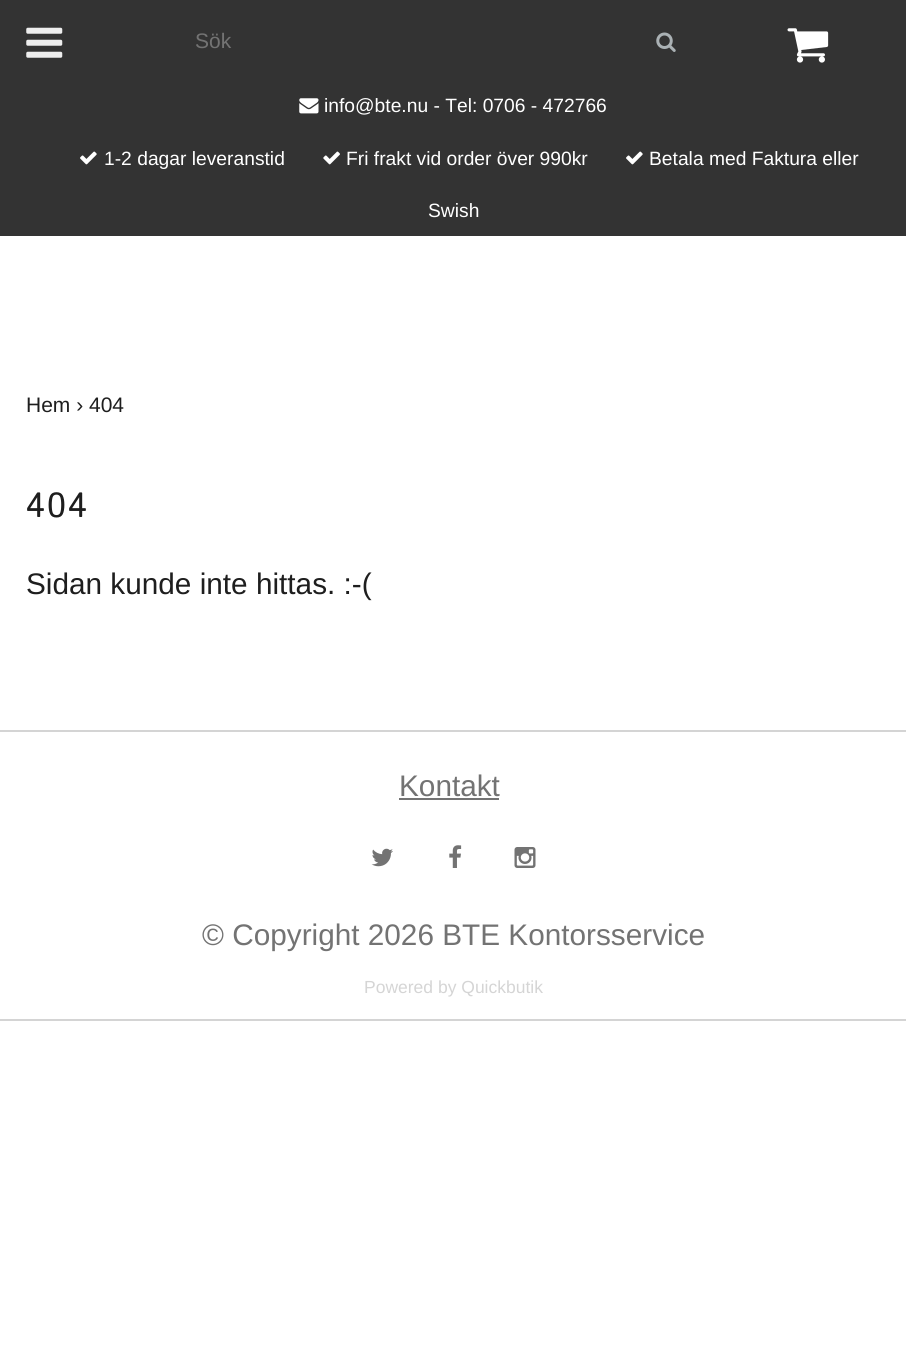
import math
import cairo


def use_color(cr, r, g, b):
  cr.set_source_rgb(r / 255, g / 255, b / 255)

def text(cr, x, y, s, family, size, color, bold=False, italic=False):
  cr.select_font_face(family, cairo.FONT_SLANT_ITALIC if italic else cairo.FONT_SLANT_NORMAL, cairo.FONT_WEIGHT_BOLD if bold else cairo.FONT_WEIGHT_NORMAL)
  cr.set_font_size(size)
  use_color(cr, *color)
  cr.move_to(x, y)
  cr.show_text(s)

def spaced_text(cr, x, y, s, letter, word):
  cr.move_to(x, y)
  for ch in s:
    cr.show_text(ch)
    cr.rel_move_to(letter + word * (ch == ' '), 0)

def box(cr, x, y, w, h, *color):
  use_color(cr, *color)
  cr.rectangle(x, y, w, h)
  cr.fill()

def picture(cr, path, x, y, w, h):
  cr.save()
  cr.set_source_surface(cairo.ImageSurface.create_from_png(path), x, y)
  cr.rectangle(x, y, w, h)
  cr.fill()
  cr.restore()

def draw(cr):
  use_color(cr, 255, 255, 255)
  cr.paint()
  box(cr, 0, 0, 906, 236, 51, 51, 51)
  picture(cr, "img_01.png", 26, 27, 37, 31)
  picture(cr, "img_02.png", 656, 32, 20, 20)
  picture(cr, "img_03.png", 787, 28, 42, 35)
  picture(cr, "img_04.png", 299, 98, 20, 16)
  picture(cr, "img_05.png", 80, 151, 17, 14)
  picture(cr, "img_06.png", 323, 151, 17, 14)
  picture(cr, "img_05.png", 626, 151, 17, 14)
  box(cr, 0, 730, 906, 2, 212, 212, 212)
  box(cr, 0, 1019, 906, 2, 212, 212, 212)
  box(cr, 399, 798, 100, 2, 115, 115, 115)
  picture(cr, "img_07.png", 371, 848, 22, 19)
  picture(cr, "img_08.png", 449, 845, 13, 23)
  picture(cr, "img_09.png", 514, 847, 22, 21)
  text(cr, 195, 48, "Sök", "Liberation Sans", 21, (115, 115, 115))
  text(cr, 324, 112, "info@bte.nu - Tel: 0706 - 472766", "Liberation Sans", 19.25, (255, 255, 255))
  text(cr, 104, 165, "1-2 dagar leveranstid", "Liberation Sans", 19.25, (255, 255, 255))
  text(cr, 346, 165, "Fri frakt vid order över 990kr", "Liberation Sans", 19.25, (255, 255, 255))
  text(cr, 649, 165, "Betala med Faktura eller", "Liberation Sans", 19.25, (255, 255, 255))
  text(cr, 428, 217, "Swish", "Liberation Sans", 19.25, (255, 255, 255))
  text(cr, 26, 412, "Hem › 404", "Liberation Sans", 21, (30, 30, 30))
  cr.select_font_face("Istok Web")
  cr.set_font_size(35)
  spaced_text(cr, 26, 517, "404", 2, 0)
  text(cr, 26, 594, "Sidan kunde inte hittas. :-(", "Liberation Sans", 29.75, (30, 30, 30))
  text(cr, 399, 796, "Kontakt", "Liberation Sans", 29.75, (115, 115, 115))
  text(cr, 202, 945, "© Copyright 2026 BTE Kontorsservice", "Liberation Sans", 29.75, (115, 115, 115))
  text(cr, 364, 993, "Powered by Quickbutik", "Liberation Sans", 17.5, (213, 213, 213))


surface = cairo.ImageSurface(cairo.FORMAT_RGB24, 906, 1361)
cr = cairo.Context(surface)
options = cairo.FontOptions()
options.set_hint_metrics(cairo.HINT_METRICS_OFF)
options.set_hint_style(cairo.HINT_STYLE_NONE)
cr.set_font_options(options)
cr.set_miter_limit(4)
draw(cr)
surface.write_to_png("out.png")
